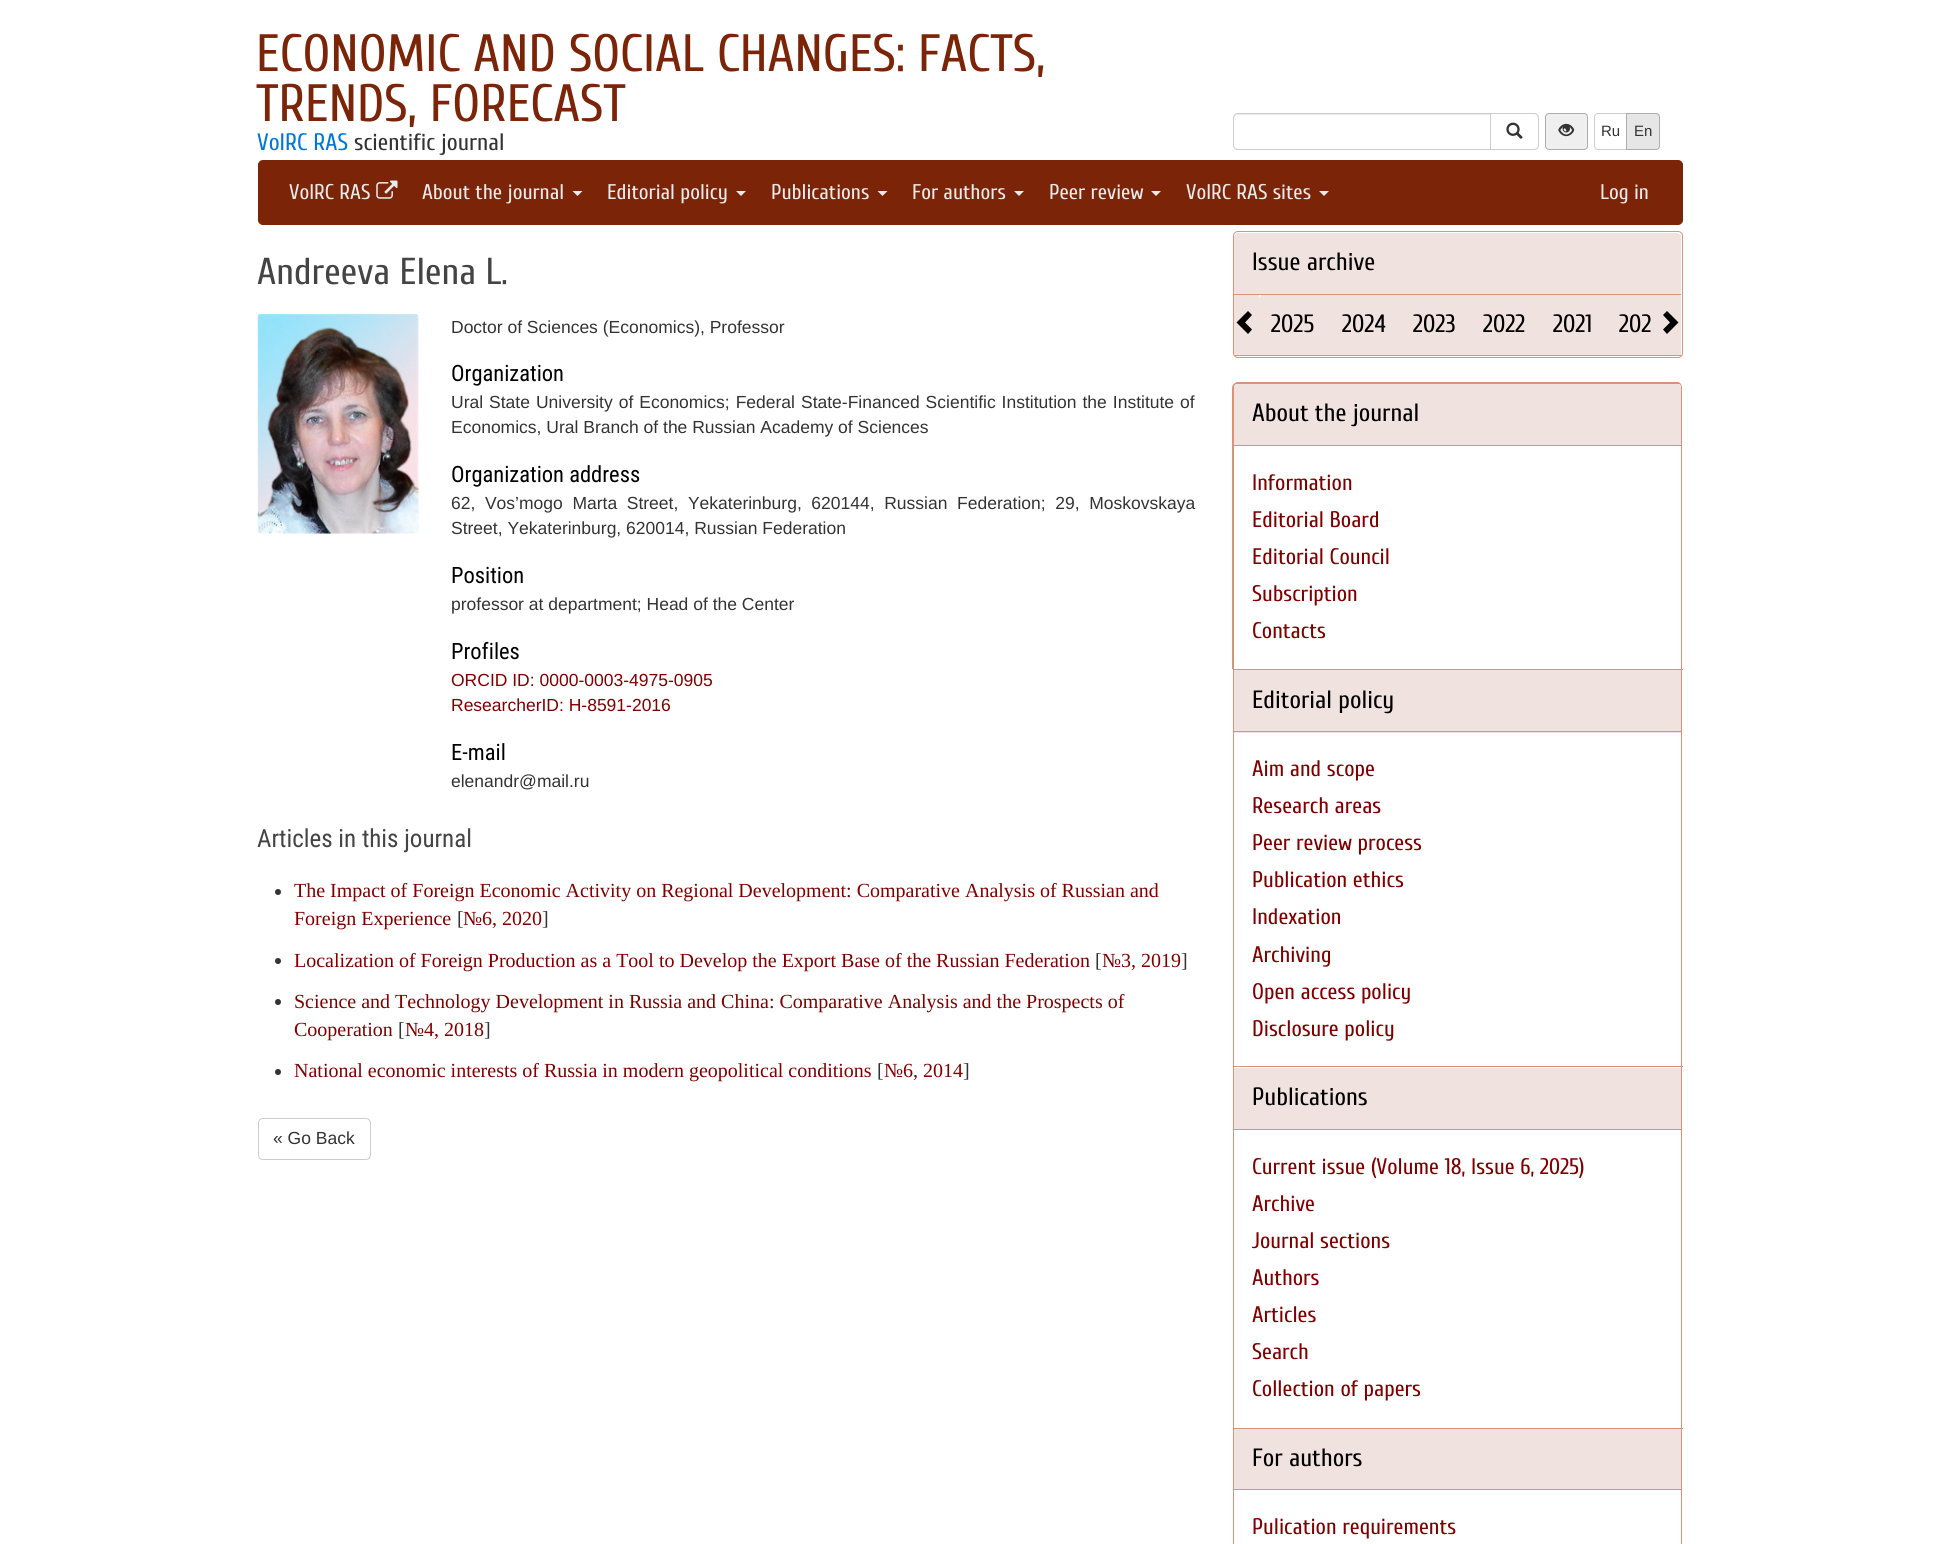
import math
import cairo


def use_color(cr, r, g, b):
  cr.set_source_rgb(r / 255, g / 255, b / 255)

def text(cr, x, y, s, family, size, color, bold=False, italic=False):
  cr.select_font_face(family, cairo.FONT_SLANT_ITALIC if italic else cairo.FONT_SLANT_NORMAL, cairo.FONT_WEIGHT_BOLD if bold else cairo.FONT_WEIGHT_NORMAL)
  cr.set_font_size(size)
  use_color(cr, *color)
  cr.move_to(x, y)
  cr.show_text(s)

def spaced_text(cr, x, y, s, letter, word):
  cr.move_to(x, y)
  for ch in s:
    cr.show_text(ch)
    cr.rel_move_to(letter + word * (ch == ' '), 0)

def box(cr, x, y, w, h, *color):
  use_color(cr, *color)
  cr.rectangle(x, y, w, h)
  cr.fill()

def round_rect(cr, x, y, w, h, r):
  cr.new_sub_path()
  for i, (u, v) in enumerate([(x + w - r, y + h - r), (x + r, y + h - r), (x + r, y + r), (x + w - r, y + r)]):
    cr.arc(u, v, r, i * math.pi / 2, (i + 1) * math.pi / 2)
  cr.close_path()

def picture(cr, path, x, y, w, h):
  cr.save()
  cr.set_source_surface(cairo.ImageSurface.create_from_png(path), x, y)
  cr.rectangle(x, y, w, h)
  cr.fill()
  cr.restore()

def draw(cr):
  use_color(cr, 255, 255, 255)
  cr.paint()
  use_color(cr, 236, 236, 236)
  cr.new_path()
  cr.move_to(1238, 115)
  cr.line_to(1490, 115)
  cr.line_to(1490, 114)
  cr.line_to(1238, 114)
  cr.curve_to(1236, 114, 1234, 116, 1234, 118)
  cr.line_to(1234, 119)
  cr.curve_to(1234, 117, 1235, 115, 1238, 115)
  cr.close_path()
  cr.fill()
  cr.new_path()
  cr.move_to(1238, 113.5)
  cr.line_to(1490.5, 113.5)
  cr.line_to(1490.5, 149.5)
  cr.line_to(1238, 149.5)
  cr.curve_to(1235.5, 149.5, 1233.5, 147.5, 1233.5, 145)
  cr.line_to(1233.5, 118)
  cr.curve_to(1233.5, 115.5, 1235.5, 113.5, 1238, 113.5)
  cr.close_path()
  use_color(cr, 204, 204, 204)
  cr.set_line_width(1)
  cr.stroke()
  use_color(cr, 255, 255, 255)
  cr.new_path()
  cr.move_to(1490.5, 113.5)
  cr.line_to(1534, 113.5)
  cr.curve_to(1536.5, 113.5, 1538.5, 115.5, 1538.5, 118)
  cr.line_to(1538.5, 145)
  cr.curve_to(1538.5, 147.5, 1536.5, 149.5, 1534, 149.5)
  cr.line_to(1490.5, 149.5)
  cr.close_path()
  cr.fill_preserve()
  use_color(cr, 204, 204, 204)
  cr.stroke()
  picture(cr, "img_01.png", 1506, 122, 17, 17)
  use_color(cr, 239, 239, 239)
  round_rect(cr, 1545.5, 113.5, 42, 36, 3.5)
  cr.fill_preserve()
  use_color(cr, 173, 173, 173)
  cr.stroke()
  picture(cr, "img_02.png", 1558, 123, 17, 14)
  cr.new_path()
  cr.move_to(1598, 113.5)
  cr.line_to(1627.5, 113.5)
  cr.line_to(1627.5, 149.5)
  cr.line_to(1598, 149.5)
  cr.curve_to(1596, 149.5, 1594.5, 148, 1594.5, 146)
  cr.line_to(1594.5, 117)
  cr.curve_to(1594.5, 115, 1596, 113.5, 1598, 113.5)
  cr.close_path()
  use_color(cr, 204, 204, 204)
  cr.stroke()
  use_color(cr, 230, 230, 230)
  cr.new_path()
  cr.move_to(1626.5, 113.5)
  cr.line_to(1656, 113.5)
  cr.curve_to(1658, 113.5, 1659.5, 115, 1659.5, 117)
  cr.line_to(1659.5, 146)
  cr.curve_to(1659.5, 148, 1658, 149.5, 1656, 149.5)
  cr.line_to(1626.5, 149.5)
  cr.close_path()
  cr.fill_preserve()
  use_color(cr, 173, 173, 173)
  cr.stroke()
  use_color(cr, 123, 36, 8)
  round_rect(cr, 258.5, 160.5, 1424, 64, 4.5)
  cr.fill_preserve()
  cr.stroke()
  picture(cr, "img_03.png", 376, 180, 22, 19)
  use_color(cr, 235, 235, 235)
  cr.new_path()
  cr.move_to(572.5, 191)
  cr.line_to(582.5, 191)
  cr.line_to(577.5, 196)
  cr.close_path()
  cr.fill()
  cr.new_path()
  cr.move_to(736, 191)
  cr.line_to(746, 191)
  cr.line_to(741, 196)
  cr.close_path()
  cr.fill()
  cr.new_path()
  cr.move_to(877.5, 191)
  cr.line_to(887.5, 191)
  cr.line_to(882.5, 196)
  cr.close_path()
  cr.fill()
  cr.new_path()
  cr.move_to(1014, 191)
  cr.line_to(1024, 191)
  cr.line_to(1019, 196)
  cr.close_path()
  cr.fill()
  cr.new_path()
  cr.move_to(1151, 191)
  cr.line_to(1161, 191)
  cr.line_to(1156, 196)
  cr.close_path()
  cr.fill()
  cr.new_path()
  cr.move_to(1319, 191)
  cr.line_to(1329, 191)
  cr.line_to(1324, 196)
  cr.close_path()
  cr.fill()
  picture(cr, "img_04.png", 257, 313, 162, 221)
  use_color(cr, 51, 51, 51)
  cr.arc(278, 892, 3, 0, 2 * math.pi)
  cr.fill()
  cr.arc(278, 961, 3, 0, 2 * math.pi)
  cr.fill()
  cr.arc(278, 1002, 3, 0, 2 * math.pi)
  cr.fill()
  cr.arc(278, 1072, 3, 0, 2 * math.pi)
  cr.fill()
  round_rect(cr, 258.5, 1118.5, 112, 41, 4.5)
  use_color(cr, 204, 204, 204)
  cr.stroke()
  round_rect(cr, 1233.5, 231.5, 449, 126, 4.5)
  use_color(cr, 216, 147, 122)
  cr.stroke()
  use_color(cr, 240, 226, 222)
  cr.new_path()
  cr.move_to(1238, 233)
  cr.line_to(1677, 233)
  cr.curve_to(1679, 233, 1681, 235, 1681, 237)
  cr.line_to(1681, 295)
  cr.line_to(1234, 295)
  cr.line_to(1234, 237)
  cr.curve_to(1234, 235, 1236, 233, 1238, 233)
  cr.close_path()
  cr.fill()
  box(cr, 1234, 294, 447, 1, 216, 147, 122)
  box(cr, 1234, 295, 25, 60, 240, 226, 222)
  use_color(cr, 0, 0, 0)
  cr.new_path()
  cr.move_to(1252, 315)
  cr.line_to(1245, 322.5)
  cr.line_to(1252, 329.5)
  cr.line_to(1248, 334)
  cr.line_to(1236.5, 322.5)
  cr.line_to(1248, 311)
  cr.close_path()
  cr.fill()
  use_color(cr, 240, 226, 222)
  cr.new_path()
  cr.move_to(1263, 295)
  cr.line_to(1656, 295)
  cr.line_to(1656, 356)
  cr.line_to(1259, 356)
  cr.line_to(1259, 299)
  cr.curve_to(1259, 297, 1261, 295, 1263, 295)
  cr.close_path()
  cr.fill()
  box(cr, 1234, 355, 447, 1, 216, 147, 122)
  box(cr, 1656, 295, 25, 60, 240, 226, 222)
  use_color(cr, 0, 0, 0)
  cr.new_path()
  cr.move_to(1678.5, 322.5)
  cr.line_to(1667, 334)
  cr.line_to(1663, 329.5)
  cr.line_to(1670, 322.5)
  cr.line_to(1663, 315)
  cr.line_to(1667, 311)
  cr.close_path()
  cr.fill()
  use_color(cr, 216, 147, 122)
  cr.set_fill_rule(cairo.FILL_RULE_EVEN_ODD)
  cr.new_path()
  cr.move_to(1238, 382)
  cr.line_to(1678, 382)
  cr.curve_to(1680, 382, 1682, 385, 1682, 388)
  cr.line_to(1682, 669)
  cr.line_to(1232, 669)
  cr.line_to(1232, 388)
  cr.curve_to(1232, 385, 1235, 382, 1238, 382)
  cr.close_path()
  cr.move_to(1238, 384)
  cr.line_to(1678, 384)
  cr.curve_to(1680, 384, 1681, 385, 1681, 388)
  cr.line_to(1681, 669)
  cr.line_to(1234, 669)
  cr.line_to(1234, 388)
  cr.curve_to(1234, 385, 1235, 384, 1238, 384)
  cr.close_path()
  cr.fill()
  use_color(cr, 240, 226, 222)
  cr.new_path()
  cr.move_to(1238, 384)
  cr.line_to(1677, 384)
  cr.curve_to(1679, 384, 1681, 386, 1681, 388)
  cr.line_to(1681, 446)
  cr.line_to(1234, 446)
  cr.line_to(1234, 388)
  cr.curve_to(1234, 386, 1236, 384, 1238, 384)
  cr.close_path()
  cr.fill()
  box(cr, 1234, 445, 447, 1, 216, 147, 122)
  box(cr, 1233, 669, 450, 1, 216, 147, 122)
  box(cr, 1681, 669, 1, 397, 216, 147, 122)
  box(cr, 1233, 669, 1, 397, 216, 147, 122)
  box(cr, 1234, 670, 447, 63, 240, 226, 222)
  box(cr, 1234, 731, 447, 1, 216, 147, 122)
  box(cr, 1233, 1066, 450, 1, 216, 147, 122)
  box(cr, 1681, 1066, 1, 362, 216, 147, 122)
  box(cr, 1233, 1066, 1, 362, 216, 147, 122)
  box(cr, 1234, 1068, 447, 61, 240, 226, 222)
  box(cr, 1234, 1129, 447, 1, 216, 147, 122)
  box(cr, 1233, 1428, 450, 1, 216, 147, 122)
  box(cr, 1681, 1428, 1, 116, 216, 147, 122)
  box(cr, 1233, 1428, 1, 116, 216, 147, 122)
  box(cr, 1234, 1429, 447, 60, 240, 226, 222)
  box(cr, 1234, 1489, 447, 1, 216, 147, 122)
  text(cr, 256, 71, "ECONOMIC AND SOCIAL CHANGES: FACTS,", "Cuprum", 52.5, (123, 36, 8))
  text(cr, 256, 121, "TRENDS, FORECAST", "Cuprum", 52.5, (123, 36, 8))
  text(cr, 257, 150, "VolRC RAS", "Cuprum", 23.75, (0, 119, 221))
  text(cr, 354, 150, "scientific journal", "Cuprum", 23.75, (51, 51, 51))
  text(cr, 1601, 136, "Ru", "Liberation Sans", 15, (51, 51, 51))
  text(cr, 1634, 136, "En", "Liberation Sans", 15, (51, 51, 51))
  text(cr, 289, 199, "VolRC RAS", "Cuprum", 21.25, (235, 235, 235))
  text(cr, 422, 199, "About the journal", "Cuprum", 21.25, (235, 235, 235))
  text(cr, 607, 199, "Editorial policy", "Cuprum", 21.25, (235, 235, 235))
  text(cr, 771, 199, "Publications", "Cuprum", 21.25, (235, 235, 235))
  text(cr, 912, 199, "For authors", "Cuprum", 21.25, (235, 235, 235))
  text(cr, 1049, 199, "Peer review", "Cuprum", 21.25, (235, 235, 235))
  text(cr, 1186, 199, "VolRC RAS sites", "Cuprum", 21.25, (235, 235, 235))
  text(cr, 1600, 199, "Log in", "Cuprum", 21.25, (235, 235, 235))
  text(cr, 257, 284, "Andreeva Elena L.", "Cuprum", 37.5, (68, 68, 68))
  text(cr, 451, 333, "Doctor of Sciences (Economics), Professor", "Liberation Sans", 17.5, (51, 51, 51))
  text(cr, 451, 381, "Organization", "Roboto Condensed", 22.5, (0, 0, 0))
  cr.select_font_face("Liberation Sans")
  cr.set_font_size(17.5)
  use_color(cr, 51, 51, 51)
  spaced_text(cr, 451, 408, "Ural State University of Economics; Federal State-Financed Scientific Institution the Institute of", 0, 1.1)
  text(cr, 451, 433, "Economics, Ural Branch of the Russian Academy of Sciences", "Liberation Sans", 17.5, (51, 51, 51))
  text(cr, 451, 482, "Organization address", "Roboto Condensed", 22.5, (0, 0, 0))
  cr.select_font_face("Liberation Sans")
  cr.set_font_size(17.5)
  use_color(cr, 51, 51, 51)
  spaced_text(cr, 451, 509, "62, Vos’mogo Marta Street, Yekaterinburg, 620144, Russian Federation; 29, Moskovskaya", 0, 4.75)
  text(cr, 451, 534, "Street, Yekaterinburg, 620014, Russian Federation", "Liberation Sans", 17.5, (51, 51, 51))
  text(cr, 451, 583, "Position", "Roboto Condensed", 22.5, (0, 0, 0))
  text(cr, 451, 610, "professor at department; Head of the Center", "Liberation Sans", 17.5, (51, 51, 51))
  text(cr, 451, 659, "Profiles", "Roboto Condensed", 22.5, (0, 0, 0))
  text(cr, 451, 686, "ORCID ID: 0000-0003-4975-0905", "Liberation Sans", 17.5, (128, 0, 0))
  text(cr, 451, 711, "ResearcherID: H-8591-2016", "Liberation Sans", 17.5, (128, 0, 0))
  text(cr, 451, 760, "E-mail", "Roboto Condensed", 22.5, (0, 0, 0))
  text(cr, 451, 787, "elenandr@mail.ru", "Liberation Sans", 17.5, (51, 51, 51))
  text(cr, 257, 847, "Articles in this journal", "Roboto Condensed", 25, (68, 68, 68))
  text(cr, 294, 897, "The Impact of Foreign Economic Activity on Regional Development: Comparative Analysis of Russian and", "Liberation Serif", 20, (128, 0, 0))
  text(cr, 294, 925, "Foreign Experience", "Liberation Serif", 20, (128, 0, 0))
  text(cr, 457, 925, "[", "Liberation Serif", 20, (51, 51, 51))
  text(cr, 463, 925, "№6, 2020", "Liberation Serif", 20, (128, 0, 0))
  text(cr, 542, 925, "]", "Liberation Serif", 20, (51, 51, 51))
  text(cr, 294, 967, "Localization of Foreign Production as a Tool to Develop the Export Base of the Russian Federation", "Liberation Serif", 20, (128, 0, 0))
  text(cr, 1095, 967, "[", "Liberation Serif", 20, (51, 51, 51))
  text(cr, 1102, 967, "№3, 2019", "Liberation Serif", 20, (128, 0, 0))
  text(cr, 1181, 967, "]", "Liberation Serif", 20, (51, 51, 51))
  text(cr, 294, 1008, "Science and Technology Development in Russia and China: Comparative Analysis and the Prospects of", "Liberation Serif", 20, (128, 0, 0))
  text(cr, 294, 1036, "Cooperation", "Liberation Serif", 20, (128, 0, 0))
  text(cr, 398, 1036, "[", "Liberation Serif", 20, (51, 51, 51))
  text(cr, 405, 1036, "№4, 2018", "Liberation Serif", 20, (128, 0, 0))
  text(cr, 484, 1036, "]", "Liberation Serif", 20, (51, 51, 51))
  text(cr, 294, 1077, "National economic interests of Russia in modern geopolitical conditions", "Liberation Serif", 20, (128, 0, 0))
  text(cr, 877, 1077, "[", "Liberation Serif", 20, (51, 51, 51))
  text(cr, 884, 1077, "№6, 2014", "Liberation Serif", 20, (128, 0, 0))
  text(cr, 963, 1077, "]", "Liberation Serif", 20, (51, 51, 51))
  text(cr, 273, 1144, "« Go Back", "Liberation Sans", 17.5, (51, 51, 51))
  text(cr, 1252, 270, "Issue archive", "Cuprum", 25, (0, 0, 0))
  text(cr, 1271, 332, "2025", "Cuprum", 25, (0, 0, 0))
  text(cr, 1342, 332, "2024", "Cuprum", 25, (0, 0, 0))
  text(cr, 1413, 332, "2023", "Cuprum", 25, (0, 0, 0))
  text(cr, 1483, 332, "2022", "Cuprum", 25, (0, 0, 0))
  text(cr, 1553, 332, "2021", "Cuprum", 25, (0, 0, 0))
  text(cr, 1619, 332, "202", "Cuprum", 25, (0, 0, 0))
  text(cr, 1252, 421, "About the journal", "Cuprum", 25, (0, 0, 0))
  text(cr, 1252, 490, "Information", "Cuprum", 22.5, (128, 0, 0))
  text(cr, 1252, 527, "Editorial Board", "Cuprum", 22.5, (128, 0, 0))
  text(cr, 1252, 564, "Editorial Council", "Cuprum", 22.5, (128, 0, 0))
  text(cr, 1252, 601, "Subscription", "Cuprum", 22.5, (128, 0, 0))
  text(cr, 1252, 638, "Contacts", "Cuprum", 22.5, (128, 0, 0))
  text(cr, 1252, 708, "Editorial policy", "Cuprum", 25, (0, 0, 0))
  text(cr, 1252, 776, "Aim and scope", "Cuprum", 22.5, (128, 0, 0))
  text(cr, 1252, 813, "Research areas", "Cuprum", 22.5, (128, 0, 0))
  text(cr, 1252, 850, "Peer review process", "Cuprum", 22.5, (128, 0, 0))
  text(cr, 1252, 887, "Publication ethics", "Cuprum", 22.5, (128, 0, 0))
  text(cr, 1252, 924, "Indexation", "Cuprum", 22.5, (128, 0, 0))
  text(cr, 1252, 962, "Archiving", "Cuprum", 22.5, (128, 0, 0))
  text(cr, 1252, 999, "Open access policy", "Cuprum", 22.5, (128, 0, 0))
  text(cr, 1252, 1036, "Disclosure policy", "Cuprum", 22.5, (128, 0, 0))
  text(cr, 1252, 1105, "Publications", "Cuprum", 25, (0, 0, 0))
  text(cr, 1252, 1174, "Current issue (Volume 18, Issue 6, 2025)", "Cuprum", 22.5, (128, 0, 0))
  text(cr, 1252, 1211, "Archive", "Cuprum", 22.5, (128, 0, 0))
  text(cr, 1252, 1248, "Journal sections", "Cuprum", 22.5, (128, 0, 0))
  text(cr, 1252, 1285, "Authors", "Cuprum", 22.5, (128, 0, 0))
  text(cr, 1252, 1322, "Articles", "Cuprum", 22.5, (128, 0, 0))
  text(cr, 1252, 1359, "Search", "Cuprum", 22.5, (128, 0, 0))
  text(cr, 1252, 1396, "Collection of papers", "Cuprum", 22.5, (128, 0, 0))
  text(cr, 1252, 1466, "For authors", "Cuprum", 25, (0, 0, 0))
  text(cr, 1252, 1534, "Pulication requirements", "Cuprum", 22.5, (128, 0, 0))


surface = cairo.ImageSurface(cairo.FORMAT_RGB24, 1938, 1544)
cr = cairo.Context(surface)
options = cairo.FontOptions()
options.set_hint_metrics(cairo.HINT_METRICS_OFF)
options.set_hint_style(cairo.HINT_STYLE_NONE)
cr.set_font_options(options)
cr.set_miter_limit(4)
draw(cr)
surface.write_to_png("out.png")
